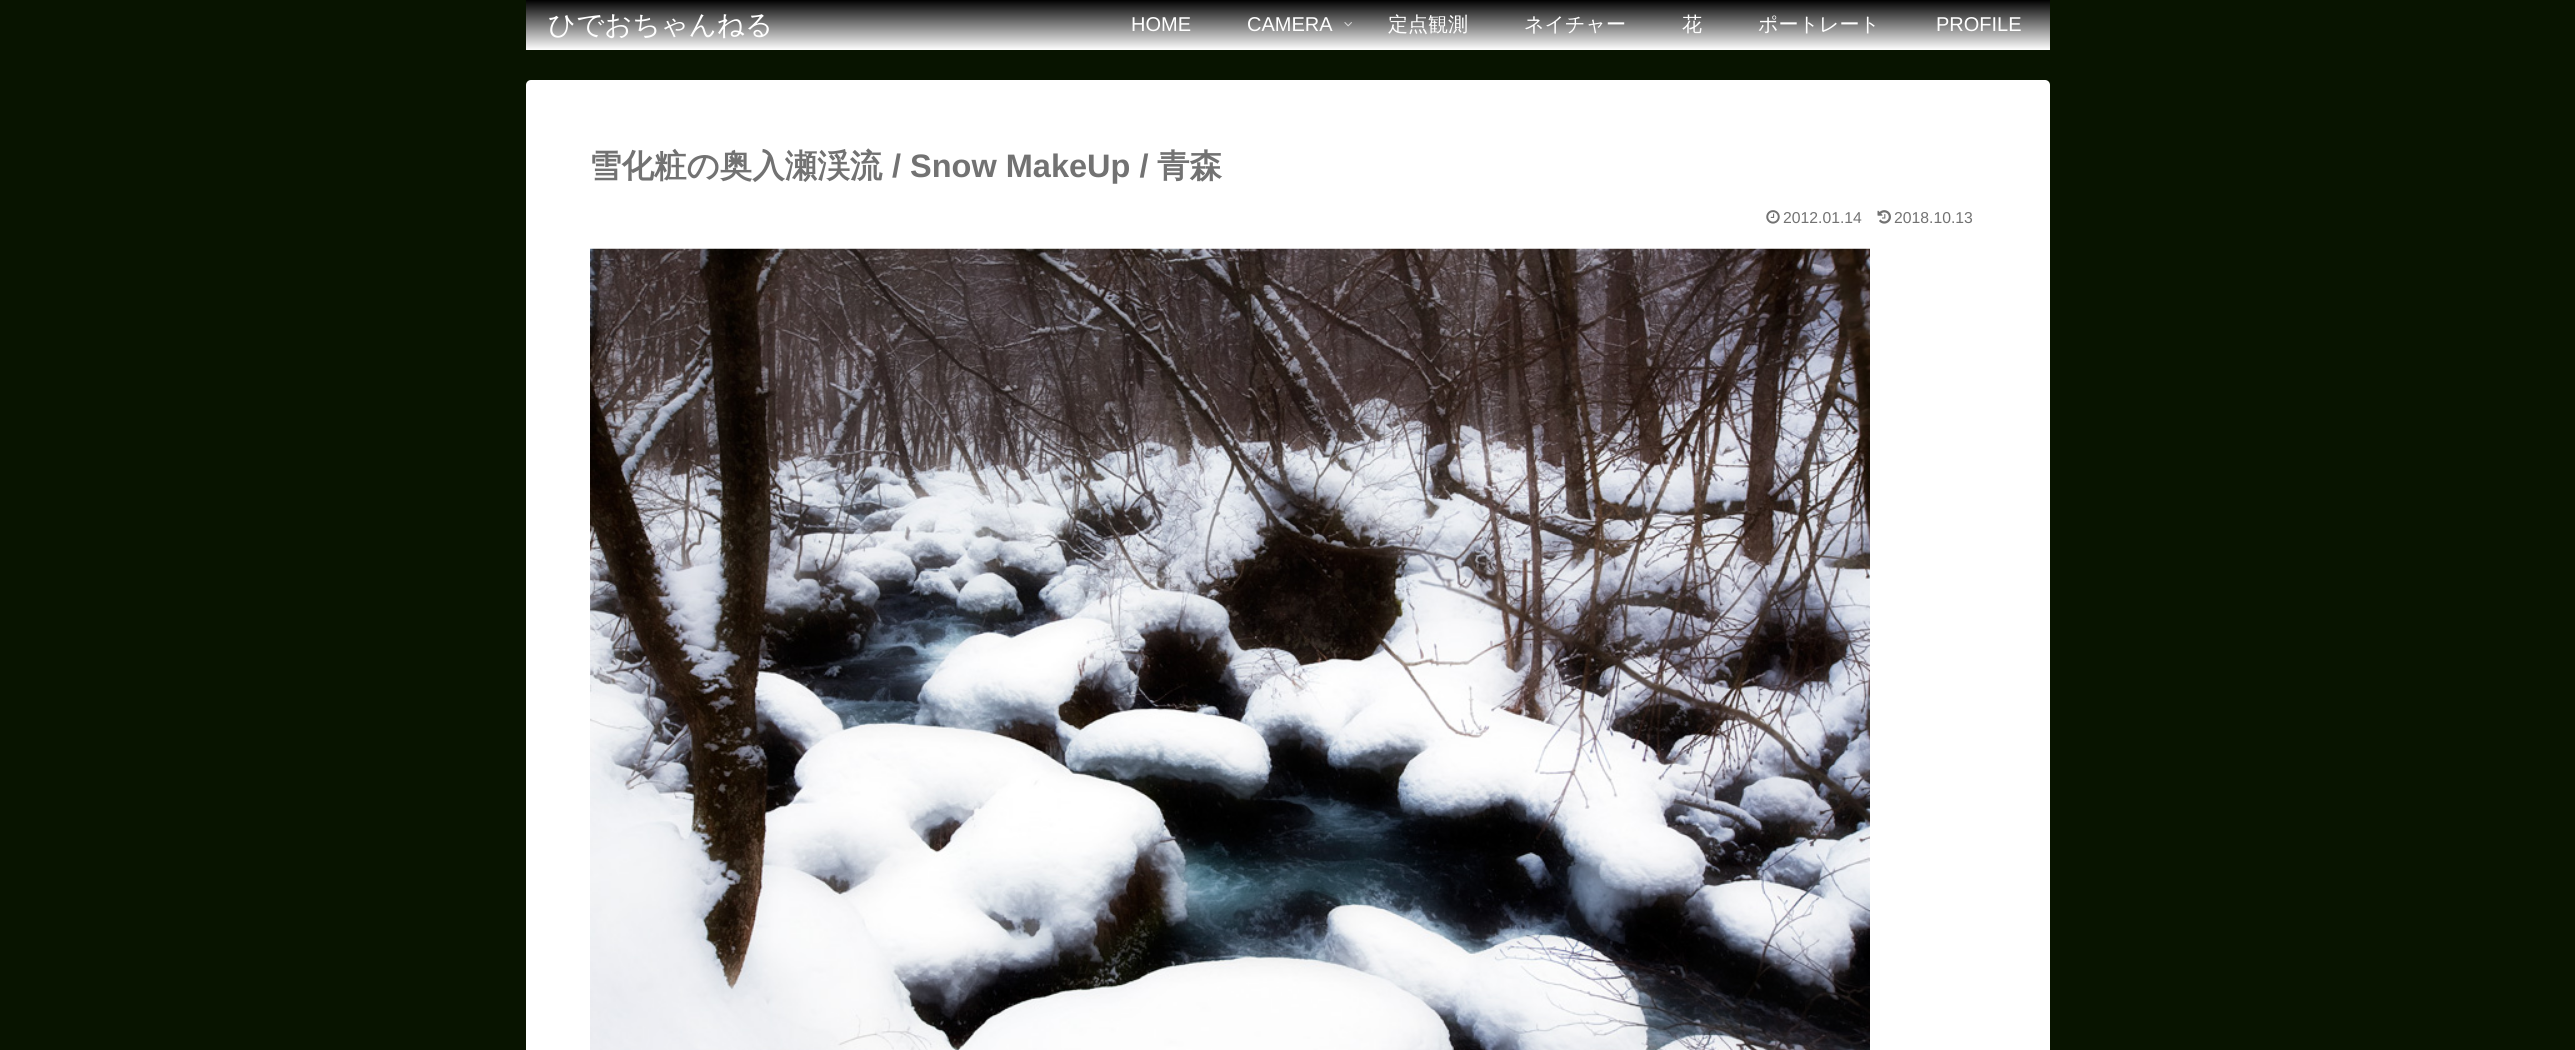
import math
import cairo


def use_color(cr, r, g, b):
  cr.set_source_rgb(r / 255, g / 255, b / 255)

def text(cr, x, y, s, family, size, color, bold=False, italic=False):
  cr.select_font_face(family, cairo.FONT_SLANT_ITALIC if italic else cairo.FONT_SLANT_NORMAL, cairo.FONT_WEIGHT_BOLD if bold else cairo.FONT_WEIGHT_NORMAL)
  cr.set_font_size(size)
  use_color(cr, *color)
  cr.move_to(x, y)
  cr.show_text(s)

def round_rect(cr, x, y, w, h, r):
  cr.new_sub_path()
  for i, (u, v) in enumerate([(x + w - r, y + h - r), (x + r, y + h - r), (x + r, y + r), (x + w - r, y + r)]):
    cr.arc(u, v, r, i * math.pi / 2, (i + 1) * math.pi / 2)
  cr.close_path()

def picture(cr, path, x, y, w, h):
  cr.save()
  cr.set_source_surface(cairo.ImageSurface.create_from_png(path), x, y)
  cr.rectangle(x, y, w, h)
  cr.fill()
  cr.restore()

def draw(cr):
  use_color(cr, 8, 20, 0)
  cr.paint()
  gradient = cairo.LinearGradient(661, 0, 661, 50)
  gradient.add_color_stop_rgba(0, 0, 0, 0, 1)
  gradient.add_color_stop_rgba(1, 1, 1, 1, 1)
  cr.set_source(gradient)
  cr.rectangle(526, 0, 270, 50)
  cr.fill()
  gradient = cairo.LinearGradient(1423, 0, 1423, 50)
  gradient.add_color_stop_rgba(0, 0, 0, 0, 1)
  gradient.add_color_stop_rgba(1, 1, 1, 1, 1)
  cr.set_source(gradient)
  cr.rectangle(796, 0, 1254, 50)
  cr.fill()
  picture(cr, "img_01.png", 1344, 22, 8, 5)
  use_color(cr, 255, 255, 255)
  round_rect(cr, 526, 80, 1524, 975, 5)
  cr.fill()
  picture(cr, "img_02.png", 1766, 210, 14, 14)
  picture(cr, "img_03.png", 1877, 210, 14, 14)
  picture(cr, "img_04.png", 590, 248, 1280, 802)
  text(cr, 548, 34, "ひでおちゃんねる", "WenQuanYi Zen Hei Medium", 27.5, (255, 255, 255))
  text(cr, 1131, 31, "HOME", "Liberation Sans", 20, (255, 255, 255))
  text(cr, 1247, 31, "CAMERA", "Liberation Sans", 20, (255, 255, 255))
  text(cr, 1388, 31, "定点観測", "WenQuanYi Zen Hei Medium", 20, (255, 255, 255))
  text(cr, 1524, 31, "ネイチャー", "WenQuanYi Zen Hei Medium", 20, (255, 255, 255))
  text(cr, 1682, 31, "花", "WenQuanYi Zen Hei Medium", 20, (255, 255, 255))
  text(cr, 1758, 31, "ポートレート", "WenQuanYi Zen Hei Medium", 20, (255, 255, 255))
  text(cr, 1936, 31, "PROFILE", "Liberation Sans", 20, (255, 255, 255))
  text(cr, 589, 177, "雪化粧の奥入瀬渓流", "WenQuanYi Zen Hei", 32.5, (114, 114, 114), bold=True)
  text(cr, 892, 177, "/ Snow MakeUp /", "Liberation Sans", 32.5, (114, 114, 114), bold=True)
  text(cr, 1157, 177, "青森", "WenQuanYi Zen Hei", 32.5, (114, 114, 114), bold=True)
  text(cr, 1783, 223, "2012.01.14", "Liberation Sans", 15.75, (114, 114, 114))
  text(cr, 1894, 223, "2018.10.13", "Liberation Sans", 15.75, (114, 114, 114))


surface = cairo.ImageSurface(cairo.FORMAT_RGB24, 2575, 1050)
cr = cairo.Context(surface)
options = cairo.FontOptions()
options.set_hint_metrics(cairo.HINT_METRICS_OFF)
options.set_hint_style(cairo.HINT_STYLE_NONE)
cr.set_font_options(options)
cr.set_miter_limit(4)
draw(cr)
surface.write_to_png("out.png")
